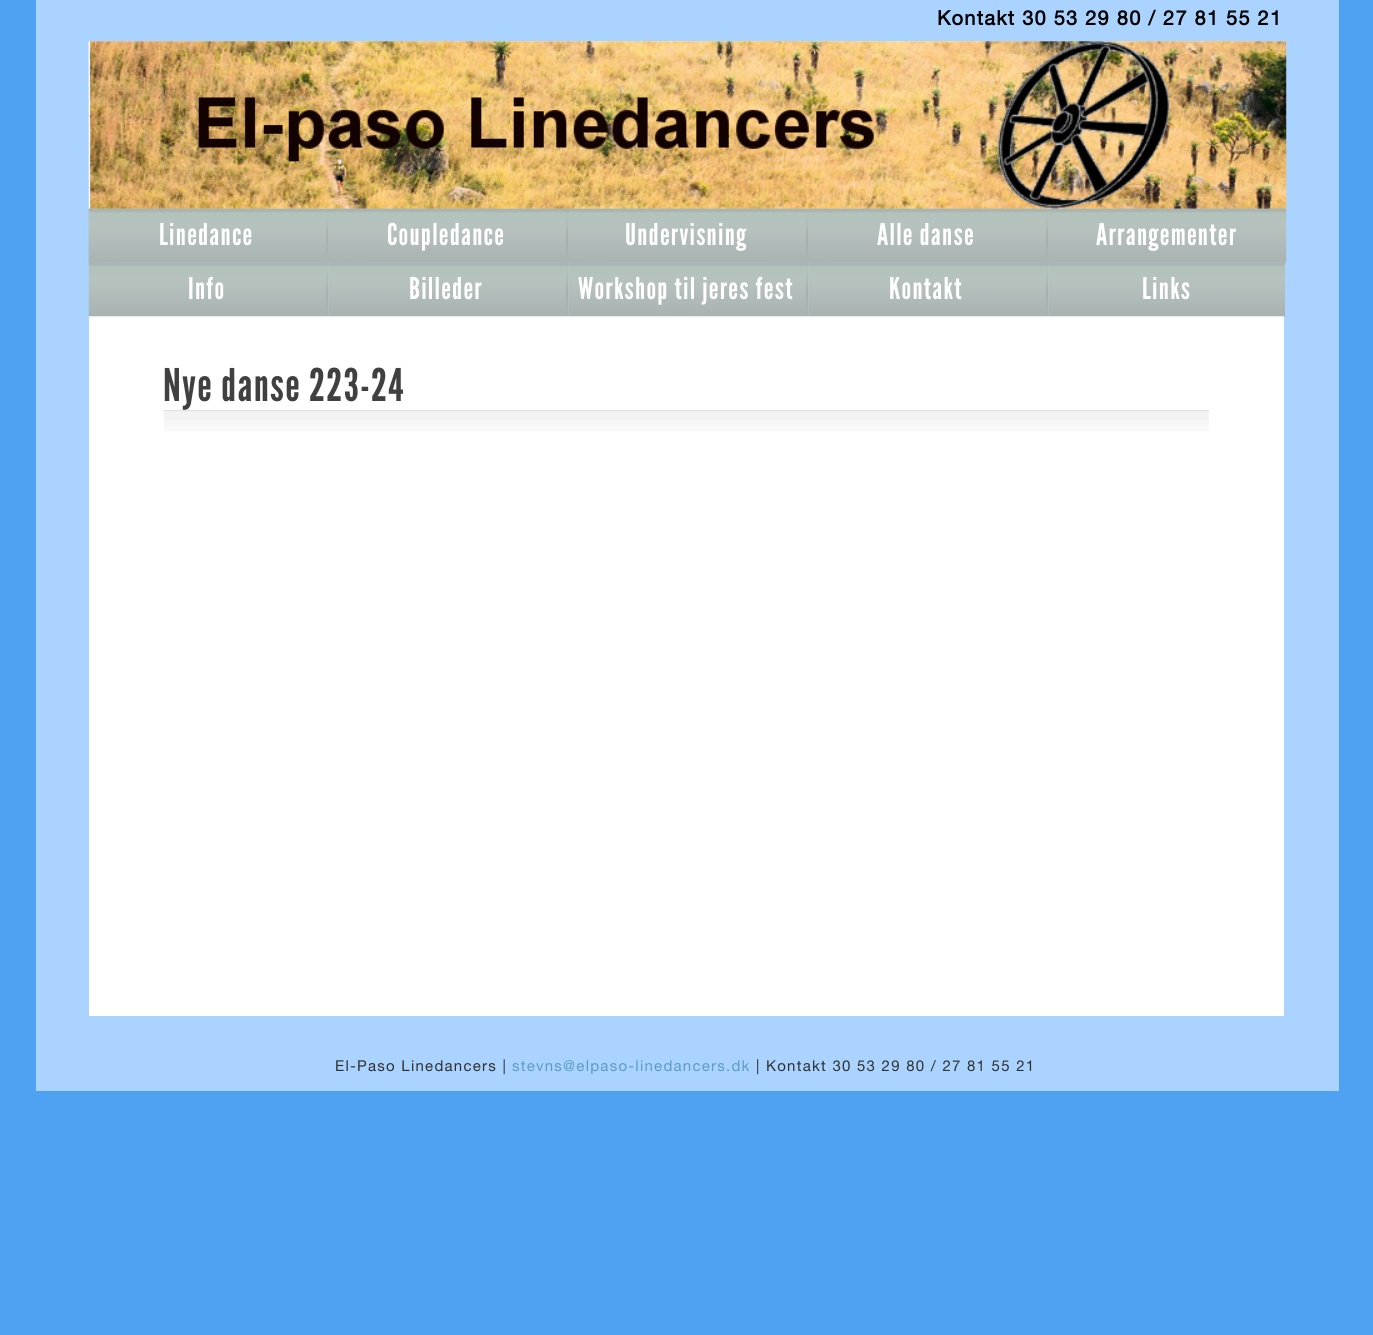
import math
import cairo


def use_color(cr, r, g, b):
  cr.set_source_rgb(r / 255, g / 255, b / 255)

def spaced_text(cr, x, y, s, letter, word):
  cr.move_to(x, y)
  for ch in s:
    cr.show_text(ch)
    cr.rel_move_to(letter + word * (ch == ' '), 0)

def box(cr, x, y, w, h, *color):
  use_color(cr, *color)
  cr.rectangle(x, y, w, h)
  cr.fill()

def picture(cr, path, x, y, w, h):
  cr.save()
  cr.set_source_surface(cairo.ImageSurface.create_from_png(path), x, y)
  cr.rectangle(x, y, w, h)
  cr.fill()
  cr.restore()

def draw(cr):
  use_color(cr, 79, 161, 242)
  cr.paint()
  box(cr, 36, 0, 1303, 1091, 170, 212, 255)
  picture(cr, "img_01.png", 88, 41, 1199, 168)
  picture(cr, "img_03.png", 88, 208, 1199, 55)
  picture(cr, "img_02.png", 88, 41, 1199, 168)
  picture(cr, "img_04.png", 88, 208, 237, 55)
  picture(cr, "img_05.png", 325, 208, 4, 55)
  picture(cr, "img_06.png", 329, 208, 236, 55)
  picture(cr, "img_07.png", 565, 208, 4, 55)
  picture(cr, "img_08.png", 569, 208, 236, 55)
  picture(cr, "img_09.png", 805, 208, 4, 55)
  picture(cr, "img_10.png", 809, 208, 236, 55)
  picture(cr, "img_11.png", 1045, 208, 4, 55)
  picture(cr, "img_12.png", 1049, 208, 236, 55)
  box(cr, 89, 316, 1195, 700, 255, 255, 255)
  picture(cr, "img_13.png", 88, 262, 237, 55)
  picture(cr, "img_14.png", 325, 262, 4, 55)
  picture(cr, "img_15.png", 328, 262, 237, 55)
  picture(cr, "img_16.png", 565, 262, 4, 55)
  picture(cr, "img_17.png", 568, 262, 237, 55)
  picture(cr, "img_16.png", 805, 262, 4, 55)
  picture(cr, "img_18.png", 808, 262, 237, 55)
  picture(cr, "img_16.png", 1045, 262, 4, 55)
  picture(cr, "img_19.png", 1048, 262, 237, 55)
  picture(cr, "img_20.png", 163, 410, 1046, 21)
  cr.select_font_face("Helvetica Neue", cairo.FONT_SLANT_NORMAL, cairo.FONT_WEIGHT_BOLD)
  cr.set_font_size(20)
  use_color(cr, 0, 0, 0)
  spaced_text(cr, 937, 25, "Kontakt 30 53 29 80 / 27 81 55 21", 1.25, 0)
  cr.select_font_face("League Gothic")
  cr.set_font_size(30)
  use_color(cr, 255, 255, 255)
  spaced_text(cr, 159, 245, "Linedance", 1.25, 0)
  spaced_text(cr, 387, 245, "Coupledance", 1.25, 0)
  spaced_text(cr, 625, 245, "Undervisning", 1.25, 0)
  spaced_text(cr, 877, 245, "Alle danse", 1.25, 0)
  spaced_text(cr, 1096, 245, "Arrangementer", 1.25, 0)
  spaced_text(cr, 188, 299, "Info", 1.25, 0)
  spaced_text(cr, 409, 299, "Billeder", 1.25, 0)
  spaced_text(cr, 578, 299, "Workshop til jeres fest", 1.25, 0)
  spaced_text(cr, 889, 299, "Kontakt", 1.25, 0)
  spaced_text(cr, 1142, 299, "Links", 1.25, 0)
  cr.set_font_size(45)
  use_color(cr, 64, 64, 64)
  spaced_text(cr, 163, 401, "Nye danse 223-24", 1.25, 0)
  cr.select_font_face("Helvetica Neue")
  cr.set_font_size(15)
  use_color(cr, 48, 48, 48)
  spaced_text(cr, 335, 1071, "El-Paso Linedancers |", 1.25, 0)
  use_color(cr, 92, 156, 193)
  spaced_text(cr, 512, 1071, "stevns@elpaso-linedancers.dk", 1.25, 0)
  use_color(cr, 48, 48, 48)
  spaced_text(cr, 756, 1071, "| Kontakt 30 53 29 80 / 27 81 55 21", 1.25, 0)


surface = cairo.ImageSurface(cairo.FORMAT_RGB24, 1373, 1335)
cr = cairo.Context(surface)
options = cairo.FontOptions()
options.set_hint_metrics(cairo.HINT_METRICS_OFF)
options.set_hint_style(cairo.HINT_STYLE_NONE)
cr.set_font_options(options)
cr.set_miter_limit(4)
draw(cr)
surface.write_to_png("out.png")
